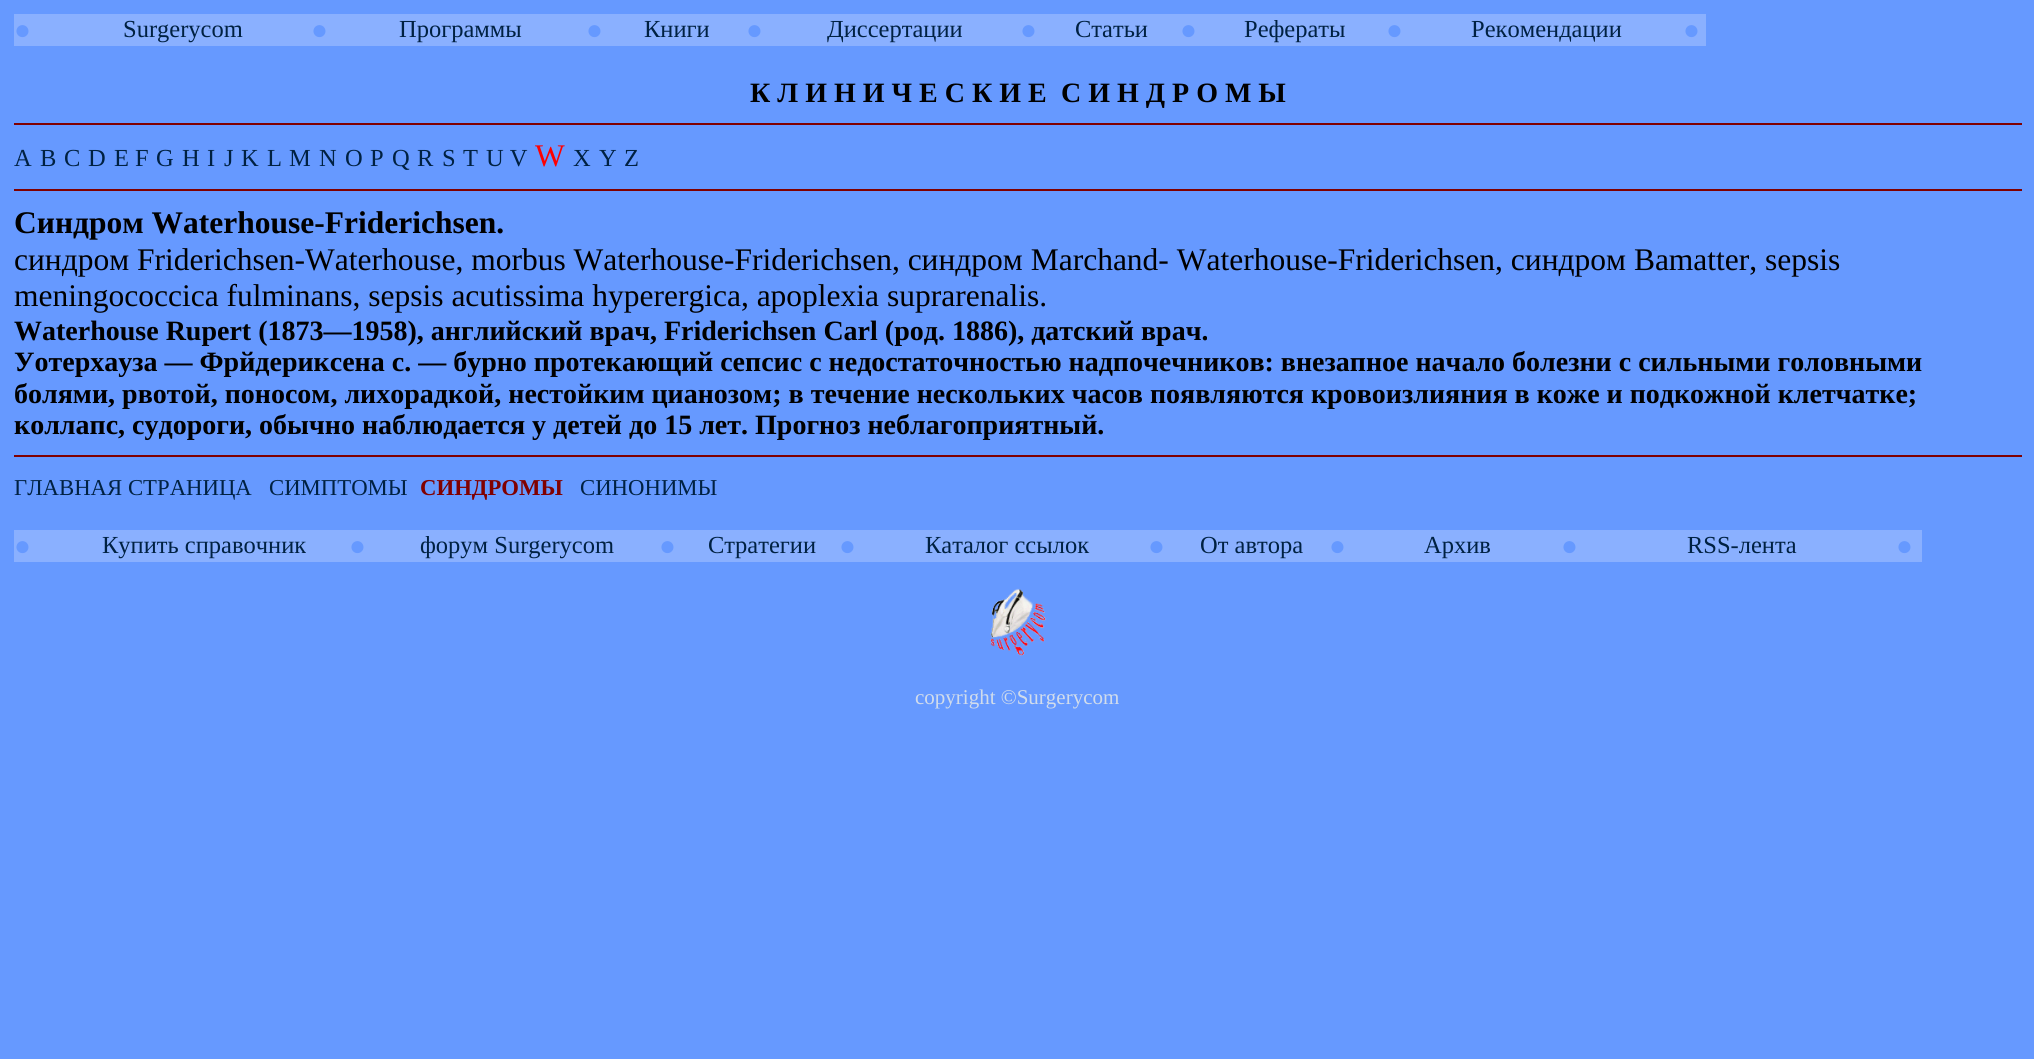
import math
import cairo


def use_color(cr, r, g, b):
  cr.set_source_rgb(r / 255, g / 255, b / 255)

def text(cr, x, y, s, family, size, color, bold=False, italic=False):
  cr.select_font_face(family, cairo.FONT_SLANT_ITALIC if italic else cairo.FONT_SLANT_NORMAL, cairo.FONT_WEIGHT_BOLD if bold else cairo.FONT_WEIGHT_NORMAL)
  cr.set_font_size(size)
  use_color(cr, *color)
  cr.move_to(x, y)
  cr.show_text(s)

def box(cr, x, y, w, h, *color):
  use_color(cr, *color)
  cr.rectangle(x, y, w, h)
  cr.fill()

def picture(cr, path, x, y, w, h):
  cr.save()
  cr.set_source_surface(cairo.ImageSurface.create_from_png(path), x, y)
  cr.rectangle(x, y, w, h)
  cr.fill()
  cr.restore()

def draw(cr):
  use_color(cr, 102, 153, 255)
  cr.paint()
  box(cr, 14, 14, 1692, 32, 138, 176, 255)
  box(cr, 14, 123, 2008, 2, 128, 0, 0)
  box(cr, 14, 189, 2008, 2, 128, 0, 0)
  box(cr, 14, 455, 2008, 2, 128, 0, 0)
  box(cr, 14, 530, 1908, 32, 138, 176, 255)
  picture(cr, "img_01.png", 990, 588, 57, 68)
  text(cr, 14, 39, "●", "Liberation Serif", 28, (102, 153, 255))
  text(cr, 123, 37, "Surgerycom", "Liberation Serif", 24.5, (0, 33, 66))
  text(cr, 311, 39, "●", "Liberation Serif", 28, (102, 153, 255))
  text(cr, 399, 37, "Программы", "Liberation Serif", 24.5, (0, 33, 66))
  text(cr, 586, 39, "●", "Liberation Serif", 28, (102, 153, 255))
  text(cr, 644, 37, "Книги", "Liberation Serif", 24.5, (0, 33, 66))
  text(cr, 746, 39, "●", "Liberation Serif", 28, (102, 153, 255))
  text(cr, 827, 37, "Диссертации", "Liberation Serif", 24.5, (0, 33, 66))
  text(cr, 1020, 39, "●", "Liberation Serif", 28, (102, 153, 255))
  text(cr, 1075, 37, "Статьи", "Liberation Serif", 24.5, (0, 33, 66))
  text(cr, 1180, 39, "●", "Liberation Serif", 28, (102, 153, 255))
  text(cr, 1244, 37, "Рефераты", "Liberation Serif", 24.5, (0, 33, 66))
  text(cr, 1386, 39, "●", "Liberation Serif", 28, (102, 153, 255))
  text(cr, 1471, 37, "Рекомендации", "Liberation Serif", 24.5, (0, 33, 66))
  text(cr, 1683, 39, "●", "Liberation Serif", 28, (102, 153, 255))
  text(cr, 750, 102, "К Л И Н И Ч Е С К И Е", "Liberation Serif", 28, (0, 0, 0), bold=True)
  text(cr, 1061, 102, "С И Н Д Р О М Ы", "Liberation Serif", 28, (0, 0, 0), bold=True)
  text(cr, 14, 166, "A", "Liberation Serif", 24.5, (0, 33, 66))
  text(cr, 40, 166, "B", "Liberation Serif", 24.5, (0, 33, 66))
  text(cr, 64, 166, "C", "Liberation Serif", 24.5, (0, 33, 66))
  text(cr, 88, 166, "D", "Liberation Serif", 24.5, (0, 33, 66))
  text(cr, 114, 166, "E F", "Liberation Serif", 24.5, (0, 33, 66))
  text(cr, 156, 166, "G", "Liberation Serif", 24.5, (0, 33, 66))
  text(cr, 182, 166, "H", "Liberation Serif", 24.5, (0, 33, 66))
  text(cr, 207, 166, "I", "Liberation Serif", 24.5, (0, 33, 66))
  text(cr, 224, 166, "J", "Liberation Serif", 24.5, (0, 33, 66))
  text(cr, 241, 166, "K", "Liberation Serif", 24.5, (0, 33, 66))
  text(cr, 267, 166, "L", "Liberation Serif", 24.5, (0, 33, 66))
  text(cr, 289, 166, "M", "Liberation Serif", 24.5, (0, 33, 66))
  text(cr, 319, 166, "N", "Liberation Serif", 24.5, (0, 33, 66))
  text(cr, 345, 166, "O", "Liberation Serif", 24.5, (0, 33, 66))
  text(cr, 370, 166, "P", "Liberation Serif", 24.5, (0, 33, 66))
  text(cr, 392, 166, "Q", "Liberation Serif", 24.5, (0, 33, 66))
  text(cr, 417, 166, "R", "Liberation Serif", 24.5, (0, 33, 66))
  text(cr, 442, 166, "S", "Liberation Serif", 24.5, (0, 33, 66))
  text(cr, 463, 166, "T", "Liberation Serif", 24.5, (0, 33, 66))
  text(cr, 486, 166, "U V", "Liberation Serif", 24.5, (0, 33, 66))
  text(cr, 535, 166, "W", "Liberation Serif", 31.5, (255, 0, 0))
  text(cr, 573, 166, "X", "Liberation Serif", 24.5, (0, 33, 66))
  text(cr, 599, 166, "Y", "Liberation Serif", 24.5, (0, 33, 66))
  text(cr, 624, 166, "Z", "Liberation Serif", 24.5, (0, 33, 66))
  text(cr, 14, 233, "Синдром Waterhouse-Friderichsen.", "Liberation Serif", 31.5, (0, 0, 0), bold=True)
  text(cr, 14, 270, "синдром Friderichsen-Waterhouse, morbus Waterhouse-Friderichsen, синдром Marchand- Waterhouse-Friderichsen, синдром Bamatter, sepsis", "Liberation Serif", 31.5, (0, 0, 0))
  text(cr, 14, 306, "meningococcica fulminans, sepsis acutissima hyperergica, apoplexia suprarenalis.", "Liberation Serif", 31.5, (0, 0, 0))
  text(cr, 14, 340, "Waterhouse Rupert (1873—1958), английский врач, Friderichsen Carl (род. 1886), датский врач.", "Liberation Serif", 28, (0, 0, 0), bold=True)
  text(cr, 14, 371, "Уотерхауза — Фрйдериксена с. — бурно протекающий сепсис с недостаточностью надпочечников: внезапное начало болезни с сильными головными", "Liberation Serif", 28, (0, 0, 0), bold=True)
  text(cr, 14, 403, "болями, рвотой, поносом, лихорадкой, нестойким цианозом; в течение нескольких часов появляются кровоизлияния в коже и подкожной клетчатке;", "Liberation Serif", 28, (0, 0, 0), bold=True)
  text(cr, 14, 434, "коллапс, судороги, обычно наблюдается у детей до 15 лет. Прогноз неблагоприятный.", "Liberation Serif", 28, (0, 0, 0), bold=True)
  text(cr, 14, 495, "ГЛАВНАЯ СТРАНИЦА", "Liberation Serif", 22.75, (0, 33, 66))
  text(cr, 269, 495, "СИМПТОМЫ", "Liberation Serif", 22.75, (0, 33, 66))
  text(cr, 420, 495, "СИНДРОМЫ", "Liberation Serif", 22.75, (128, 0, 0), bold=True)
  text(cr, 580, 495, "СИНОНИМЫ", "Liberation Serif", 22.75, (0, 33, 66))
  text(cr, 14, 555, "●", "Liberation Serif", 28, (102, 153, 255))
  text(cr, 102, 553, "Купить справочник", "Liberation Serif", 24.5, (0, 33, 66))
  text(cr, 349, 555, "●", "Liberation Serif", 28, (102, 153, 255))
  text(cr, 420, 553, "форум Surgerycom", "Liberation Serif", 24.5, (0, 33, 66))
  text(cr, 659, 555, "●", "Liberation Serif", 28, (102, 153, 255))
  text(cr, 708, 553, "Стратегии", "Liberation Serif", 24.5, (0, 33, 66))
  text(cr, 839, 555, "●", "Liberation Serif", 28, (102, 153, 255))
  text(cr, 925, 553, "Каталог ссылок", "Liberation Serif", 24.5, (0, 33, 66))
  text(cr, 1148, 555, "●", "Liberation Serif", 28, (102, 153, 255))
  text(cr, 1200, 553, "От автора", "Liberation Serif", 24.5, (0, 33, 66))
  text(cr, 1329, 555, "●", "Liberation Serif", 28, (102, 153, 255))
  text(cr, 1424, 553, "Архив", "Liberation Serif", 24.5, (0, 33, 66))
  text(cr, 1561, 555, "●", "Liberation Serif", 28, (102, 153, 255))
  text(cr, 1687, 553, "RSS-лента", "Liberation Serif", 24.5, (0, 33, 66))
  text(cr, 1896, 555, "●", "Liberation Serif", 28, (102, 153, 255))
  text(cr, 915, 704, "copyright ©Surgerycom", "Liberation Serif", 21, (209, 220, 235))


surface = cairo.ImageSurface(cairo.FORMAT_RGB24, 2034, 1059)
cr = cairo.Context(surface)
options = cairo.FontOptions()
options.set_hint_metrics(cairo.HINT_METRICS_OFF)
options.set_hint_style(cairo.HINT_STYLE_NONE)
cr.set_font_options(options)
cr.set_miter_limit(4)
draw(cr)
surface.write_to_png("out.png")
